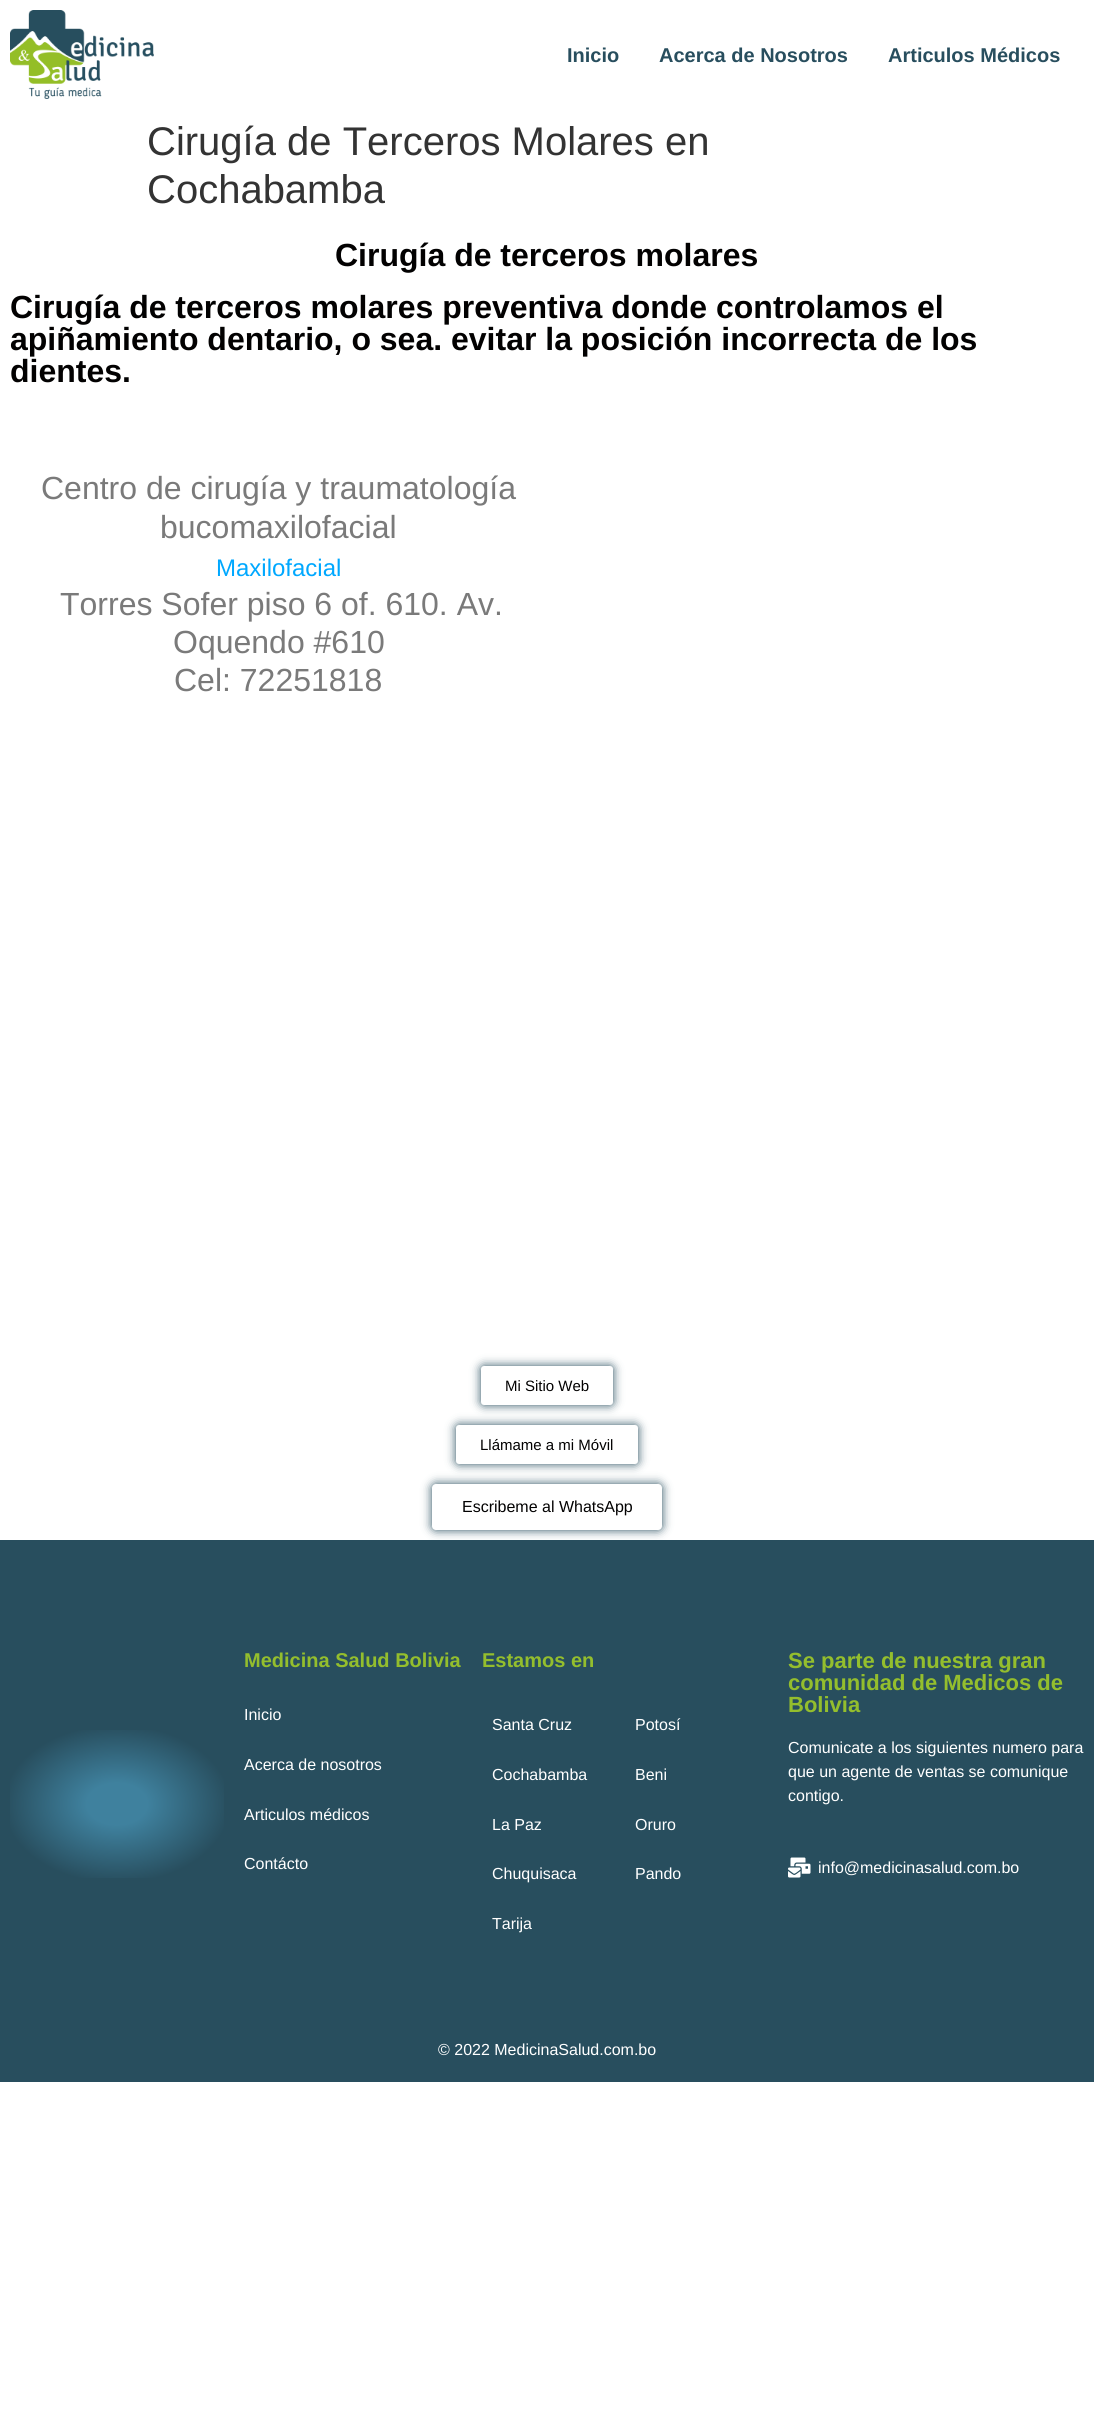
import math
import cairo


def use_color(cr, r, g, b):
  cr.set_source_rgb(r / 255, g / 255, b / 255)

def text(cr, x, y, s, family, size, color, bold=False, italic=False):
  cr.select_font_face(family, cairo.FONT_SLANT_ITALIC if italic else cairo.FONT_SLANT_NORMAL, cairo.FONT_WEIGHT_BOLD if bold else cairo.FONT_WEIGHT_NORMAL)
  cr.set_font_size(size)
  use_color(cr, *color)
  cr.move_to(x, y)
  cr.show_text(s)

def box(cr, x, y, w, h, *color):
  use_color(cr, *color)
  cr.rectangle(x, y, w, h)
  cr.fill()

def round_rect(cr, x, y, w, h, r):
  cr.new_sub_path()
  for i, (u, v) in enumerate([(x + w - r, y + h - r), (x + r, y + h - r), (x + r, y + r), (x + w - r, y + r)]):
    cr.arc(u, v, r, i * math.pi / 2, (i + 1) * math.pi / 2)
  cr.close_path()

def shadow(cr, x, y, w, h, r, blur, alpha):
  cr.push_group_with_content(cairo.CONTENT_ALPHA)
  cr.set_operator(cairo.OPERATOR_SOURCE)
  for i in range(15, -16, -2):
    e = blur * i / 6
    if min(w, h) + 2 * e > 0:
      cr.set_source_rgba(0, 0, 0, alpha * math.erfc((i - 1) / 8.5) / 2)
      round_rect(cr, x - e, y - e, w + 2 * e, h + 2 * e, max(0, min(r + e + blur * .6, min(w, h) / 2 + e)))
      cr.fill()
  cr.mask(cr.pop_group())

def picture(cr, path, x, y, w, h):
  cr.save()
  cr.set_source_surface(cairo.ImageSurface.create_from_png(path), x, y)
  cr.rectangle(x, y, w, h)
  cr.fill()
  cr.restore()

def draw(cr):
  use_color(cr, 255, 255, 255)
  cr.paint()
  picture(cr, "img_01.png", 10, 10, 144, 89)
  use_color(cr, 40, 78, 94)
  shadow(cr, 481, 1366, 132, 39, 3, 5, 1)
  use_color(cr, 255, 255, 255)
  round_rect(cr, 481, 1366, 132, 39, 3)
  cr.fill()
  use_color(cr, 40, 78, 94)
  shadow(cr, 456, 1425, 182, 39, 3, 5, 1)
  use_color(cr, 255, 255, 255)
  round_rect(cr, 456, 1425, 182, 39, 3)
  cr.fill()
  use_color(cr, 40, 78, 94)
  shadow(cr, 432, 1484, 230, 46, 4, 5, 1)
  use_color(cr, 255, 255, 255)
  round_rect(cr, 432, 1484, 230, 46, 4)
  cr.fill()
  box(cr, 0, 1540, 1094, 542, 40, 78, 94)
  gradient = cairo.RadialGradient(0, 0, 0, 0, 0, 1)
  gradient.set_matrix(cairo.Matrix(1 / 151, 0, 0, 1 / 105, -1 * 117 / 151, -1 * 1804 / 105))
  gradient.add_color_stop_rgba(0.2, 0.247, 0.506, 0.62, 1)
  gradient.add_color_stop_rgba(0.75, 0.157, 0.306, 0.369, 1)
  cr.set_source(gradient)
  cr.rectangle(10, 1730, 214, 148)
  cr.fill()
  picture(cr, "img_02.png", 788, 1857, 23, 21)
  text(cr, 567, 62, "Inicio", "Liberation Sans", 20, (40, 78, 94), bold=True)
  text(cr, 659, 62, "Acerca de Nosotros", "Liberation Sans", 20, (40, 78, 94), bold=True)
  text(cr, 888, 62, "Articulos Médicos", "Liberation Sans", 20, (40, 78, 94), bold=True)
  text(cr, 147, 155, "Cirugía de Terceros Molares en", "Liberation Sans", 40, (51, 51, 51))
  text(cr, 147, 203, "Cochabamba", "Liberation Sans", 40, (51, 51, 51))
  text(cr, 335, 266, "Cirugía de terceros molares", "Liberation Sans", 32, (2, 1, 1), bold=True)
  text(cr, 10, 318, "Cirugía de terceros molares preventiva donde controlamos el", "Liberation Sans", 32, (2, 1, 1), bold=True)
  text(cr, 10, 350, "apiñamiento dentario, o sea. evitar la posición incorrecta de los", "Liberation Sans", 32, (2, 1, 1), bold=True)
  text(cr, 10, 382, "dientes.", "Liberation Sans", 32, (2, 1, 1), bold=True)
  text(cr, 41, 499, "Centro de cirugía y traumatología", "Liberation Sans", 32, (122, 122, 122))
  text(cr, 160, 538, "bucomaxilofacial", "Liberation Sans", 32, (122, 122, 122))
  text(cr, 216, 576, "Maxilofacial", "Liberation Sans", 24, (0, 168, 255))
  text(cr, 60, 615, "Torres Sofer piso 6 of. 610. Av.", "Liberation Sans", 32, (122, 122, 122))
  text(cr, 173, 653, "Oquendo #610", "Liberation Sans", 32, (122, 122, 122))
  text(cr, 174, 691, "Cel: 72251818", "Liberation Sans", 32, (122, 122, 122))
  text(cr, 505, 1391, "Mi Sitio Web", "Liberation Sans", 15, (2, 1, 1))
  text(cr, 480, 1450, "Llámame a mi Móvil", "Liberation Sans", 15, (2, 1, 1))
  text(cr, 462, 1512, "Escribeme al WhatsApp", "Liberation Sans", 16, (2, 1, 1))
  text(cr, 244, 1667, "Medicina Salud Bolivia", "Liberation Sans", 20, (148, 190, 45), bold=True)
  text(cr, 244, 1720, "Inicio", "Liberation Sans", 16, (255, 255, 255))
  text(cr, 244, 1770, "Acerca de nosotros", "Liberation Sans", 16, (255, 255, 255))
  text(cr, 244, 1820, "Articulos médicos", "Liberation Sans", 16, (255, 255, 255))
  text(cr, 244, 1869, "Contácto", "Liberation Sans", 16, (255, 255, 255))
  text(cr, 482, 1667, "Estamos en", "Liberation Sans", 20, (148, 190, 45), bold=True)
  text(cr, 492, 1730, "Santa Cruz", "Liberation Sans", 16, (255, 255, 255))
  text(cr, 492, 1780, "Cochabamba", "Liberation Sans", 16, (255, 255, 255))
  text(cr, 492, 1830, "La Paz", "Liberation Sans", 16, (255, 255, 255))
  text(cr, 492, 1879, "Chuquisaca", "Liberation Sans", 16, (255, 255, 255))
  text(cr, 492, 1929, "Tarija", "Liberation Sans", 16, (255, 255, 255))
  text(cr, 635, 1730, "Potosí", "Liberation Sans", 16, (255, 255, 255))
  text(cr, 635, 1780, "Beni", "Liberation Sans", 16, (255, 255, 255))
  text(cr, 635, 1830, "Oruro", "Liberation Sans", 16, (255, 255, 255))
  text(cr, 635, 1879, "Pando", "Liberation Sans", 16, (255, 255, 255))
  text(cr, 788, 1668, "Se parte de nuestra gran", "Liberation Sans", 22, (148, 190, 45), bold=True)
  text(cr, 788, 1690, "comunidad de Medicos de", "Liberation Sans", 22, (148, 190, 45), bold=True)
  text(cr, 788, 1712, "Bolivia", "Liberation Sans", 22, (148, 190, 45), bold=True)
  text(cr, 788, 1753, "Comunicate a los siguientes numero para", "Liberation Sans", 16, (255, 255, 255))
  text(cr, 788, 1777, "que un agente de ventas se comunique", "Liberation Sans", 16, (255, 255, 255))
  text(cr, 788, 1801, "contigo.", "Liberation Sans", 16, (255, 255, 255))
  text(cr, 818, 1873, "info@medicinasalud.com.bo", "Liberation Sans", 16, (255, 255, 255))
  text(cr, 438, 2055, "© 2022 MedicinaSalud.com.bo", "Liberation Sans", 16, (255, 255, 255))


surface = cairo.ImageSurface(cairo.FORMAT_RGB24, 1094, 2427)
cr = cairo.Context(surface)
options = cairo.FontOptions()
options.set_hint_metrics(cairo.HINT_METRICS_OFF)
options.set_hint_style(cairo.HINT_STYLE_NONE)
cr.set_font_options(options)
cr.set_miter_limit(4)
draw(cr)
surface.write_to_png("out.png")
